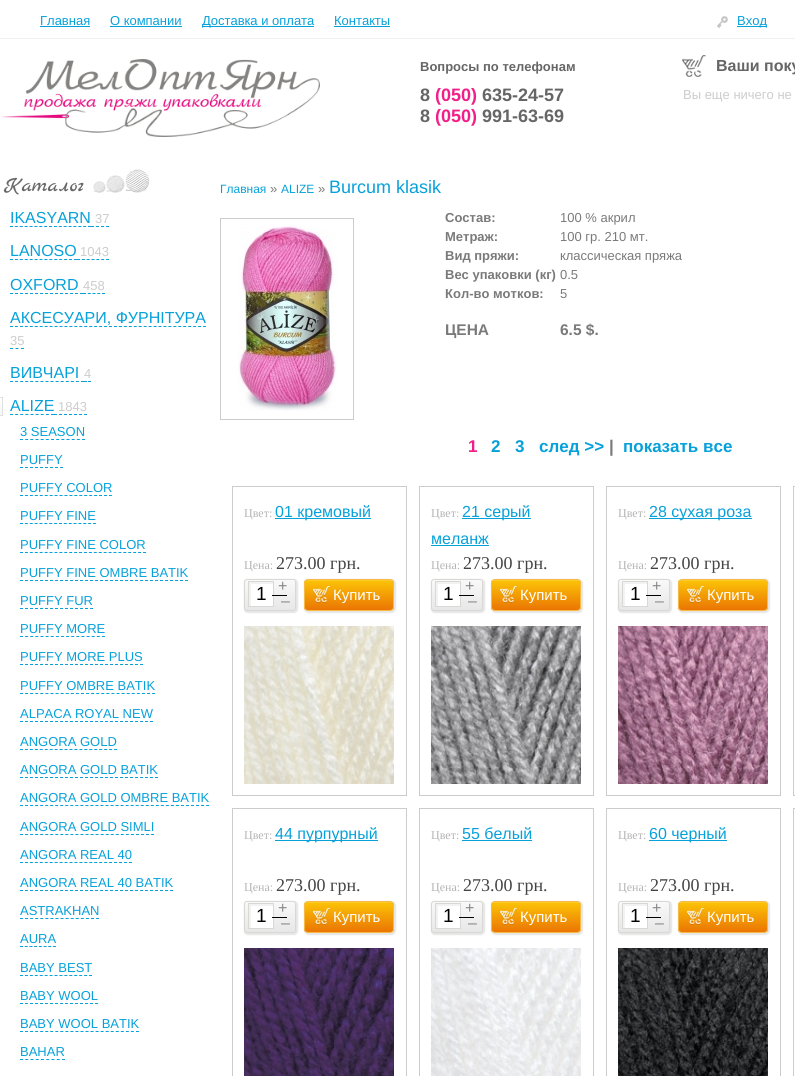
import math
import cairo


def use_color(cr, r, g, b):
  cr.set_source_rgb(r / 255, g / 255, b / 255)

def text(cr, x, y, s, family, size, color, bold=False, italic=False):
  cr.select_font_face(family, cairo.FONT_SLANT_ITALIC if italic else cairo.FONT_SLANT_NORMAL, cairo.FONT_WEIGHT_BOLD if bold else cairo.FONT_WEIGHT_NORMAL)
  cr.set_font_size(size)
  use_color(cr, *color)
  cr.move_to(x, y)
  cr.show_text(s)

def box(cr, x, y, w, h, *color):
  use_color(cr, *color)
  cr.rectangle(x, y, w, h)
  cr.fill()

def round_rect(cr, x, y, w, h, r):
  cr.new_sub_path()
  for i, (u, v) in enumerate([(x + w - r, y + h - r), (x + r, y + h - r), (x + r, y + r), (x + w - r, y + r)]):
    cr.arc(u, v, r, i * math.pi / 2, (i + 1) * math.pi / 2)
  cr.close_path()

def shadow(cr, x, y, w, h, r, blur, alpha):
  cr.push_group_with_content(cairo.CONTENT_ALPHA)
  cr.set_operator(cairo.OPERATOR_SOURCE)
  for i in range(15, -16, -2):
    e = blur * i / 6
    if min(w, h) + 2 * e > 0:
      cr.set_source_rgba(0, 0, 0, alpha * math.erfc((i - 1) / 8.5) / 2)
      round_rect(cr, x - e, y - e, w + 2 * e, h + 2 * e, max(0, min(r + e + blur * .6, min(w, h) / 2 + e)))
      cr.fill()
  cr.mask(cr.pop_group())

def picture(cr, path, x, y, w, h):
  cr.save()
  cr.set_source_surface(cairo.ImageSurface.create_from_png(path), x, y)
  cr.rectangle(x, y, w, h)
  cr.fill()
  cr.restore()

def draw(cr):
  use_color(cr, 255, 255, 255)
  cr.paint()
  box(cr, 0, 38, 795, 1, 240, 240, 240)
  box(cr, 40, 26, 50, 1, 7, 161, 218)
  box(cr, 110, 26, 72, 1, 7, 161, 218)
  box(cr, 202, 26, 112, 1, 7, 161, 218)
  box(cr, 334, 26, 56, 1, 7, 161, 218)
  picture(cr, "img_01.png", 717, 16, 11, 12)
  box(cr, 737, 26, 30, 1, 7, 161, 218)
  picture(cr, "img_02.png", 1, 59, 319, 78)
  picture(cr, "img_03.png", 682, 55, 24, 22)
  picture(cr, "img_04.png", 3, 169, 147, 26)
  cr.new_path()
  cr.move_to(10, 226.5)
  cr.line_to(91, 226.5)
  cr.set_line_width(1)
  cr.set_dash([3, 1.88])
  cr.stroke()
  cr.new_path()
  cr.move_to(91, 226.5)
  cr.line_to(109, 226.5)
  cr.set_dash([3, 2])
  cr.stroke()
  cr.new_path()
  cr.move_to(10, 259.5)
  cr.line_to(77, 259.5)
  cr.set_dash([3, 1.92])
  cr.stroke()
  cr.new_path()
  cr.move_to(77, 259.5)
  cr.line_to(109, 259.5)
  cr.set_dash([3, 1.83])
  cr.stroke()
  cr.new_path()
  cr.move_to(10, 293.5)
  cr.line_to(83, 293.5)
  cr.set_dash([3, 2])
  cr.stroke()
  cr.new_path()
  cr.move_to(83, 293.5)
  cr.line_to(105, 293.5)
  cr.set_dash([3, 1.75])
  cr.stroke()
  cr.new_path()
  cr.move_to(10, 326.5)
  cr.line_to(206, 326.5)
  cr.set_dash([3, 1.95])
  cr.stroke()
  cr.new_path()
  cr.move_to(10, 348.5)
  cr.line_to(13, 348.5)
  cr.move_to(15.5, 348.5)
  cr.line_to(18.5, 348.5)
  cr.move_to(21, 348.5)
  cr.line_to(24, 348.5)
  cr.set_dash([])
  cr.stroke()
  cr.new_path()
  cr.move_to(10, 381.5)
  cr.line_to(84, 381.5)
  cr.set_dash([3, 2.07])
  cr.stroke()
  cr.new_path()
  cr.move_to(84, 381.5)
  cr.line_to(87, 381.5)
  cr.move_to(88, 381.5)
  cr.line_to(91, 381.5)
  cr.set_dash([])
  cr.stroke()
  picture(cr, "img_05.png", 0, 397, 3, 19)
  cr.new_path()
  cr.move_to(10, 414.5)
  cr.line_to(54, 414.5)
  cr.set_dash([3, 2.12])
  cr.stroke()
  cr.new_path()
  cr.move_to(54, 414.5)
  cr.line_to(87, 414.5)
  cr.set_dash([3, 2])
  cr.stroke()
  cr.new_path()
  cr.move_to(20, 439.5)
  cr.line_to(85, 439.5)
  cr.set_dash([3, 2.17])
  cr.stroke()
  cr.new_path()
  cr.move_to(20, 467.5)
  cr.line_to(63, 467.5)
  cr.set_dash([3, 2])
  cr.stroke()
  cr.new_path()
  cr.move_to(20, 495.5)
  cr.line_to(112, 495.5)
  cr.set_dash([3, 1.94])
  cr.stroke()
  cr.new_path()
  cr.move_to(20, 523.5)
  cr.line_to(96, 523.5)
  cr.set_dash([3, 1.87])
  cr.stroke()
  cr.new_path()
  cr.move_to(20, 552.5)
  cr.line_to(146, 552.5)
  cr.set_dash([3, 1.92])
  cr.stroke()
  cr.new_path()
  cr.move_to(20, 580.5)
  cr.line_to(188, 580.5)
  cr.set_dash([3, 2])
  cr.stroke()
  cr.new_path()
  cr.move_to(20, 608.5)
  cr.line_to(93, 608.5)
  cr.stroke()
  cr.new_path()
  cr.move_to(20, 636.5)
  cr.line_to(105, 636.5)
  cr.set_dash([3, 2.12])
  cr.stroke()
  cr.new_path()
  cr.move_to(20, 664.5)
  cr.line_to(143, 664.5)
  cr.set_dash([3, 2])
  cr.stroke()
  cr.new_path()
  cr.move_to(20, 693.5)
  cr.line_to(155, 693.5)
  cr.set_dash([3, 2.08])
  cr.stroke()
  cr.new_path()
  cr.move_to(20, 721.5)
  cr.line_to(153, 721.5)
  cr.set_dash([3, 2])
  cr.stroke()
  cr.new_path()
  cr.move_to(20, 749.5)
  cr.line_to(117, 749.5)
  cr.set_dash([3, 1.95])
  cr.stroke()
  cr.new_path()
  cr.move_to(20, 777.5)
  cr.line_to(158, 777.5)
  cr.set_dash([3, 2])
  cr.stroke()
  cr.new_path()
  cr.move_to(20, 805.5)
  cr.line_to(209, 805.5)
  cr.set_dash([3, 2.03])
  cr.stroke()
  cr.new_path()
  cr.move_to(20, 834.5)
  cr.line_to(154, 834.5)
  cr.set_dash([3, 2.04])
  cr.stroke()
  cr.new_path()
  cr.move_to(20, 862.5)
  cr.line_to(132, 862.5)
  cr.set_dash([3, 1.95])
  cr.stroke()
  cr.new_path()
  cr.move_to(20, 890.5)
  cr.line_to(173, 890.5)
  cr.set_dash([3, 2])
  cr.stroke()
  cr.new_path()
  cr.move_to(20, 918.5)
  cr.line_to(99, 918.5)
  cr.set_dash([3, 2.07])
  cr.stroke()
  cr.new_path()
  cr.move_to(20, 946.5)
  cr.line_to(56, 946.5)
  cr.set_dash([3, 1.71])
  cr.stroke()
  cr.new_path()
  cr.move_to(20, 975.5)
  cr.line_to(92, 975.5)
  cr.set_dash([3, 1.93])
  cr.stroke()
  cr.new_path()
  cr.move_to(20, 1003.5)
  cr.line_to(98, 1003.5)
  cr.set_dash([3, 2])
  cr.stroke()
  cr.new_path()
  cr.move_to(20, 1031.5)
  cr.line_to(139, 1031.5)
  cr.set_dash([3, 2.04])
  cr.stroke()
  cr.new_path()
  cr.move_to(20, 1059.5)
  cr.line_to(65, 1059.5)
  cr.set_dash([3, 2.25])
  cr.stroke()
  cr.rectangle(220.5, 218.5, 133, 201)
  use_color(cr, 204, 204, 204)
  cr.set_dash([])
  cr.stroke()
  picture(cr, "img_06.png", 238, 226, 99, 185)
  cr.rectangle(232.5, 486.5, 174, 309)
  cr.stroke()
  box(cr, 275, 518, 96, 1, 7, 161, 218)
  use_color(cr, 0, 0, 0)
  shadow(cr, 244, 579, 54, 34, 4, 0.5, 0.1)
  cr.save()
  round_rect(cr, 244, 579, 52, 32, 3)
  cr.clip()
  gradient = cairo.LinearGradient(270, 580, 270, 610)
  gradient.add_color_stop_rgba(0, 0.976, 0.976, 0.976, 1)
  gradient.add_color_stop_rgba(1, 0.906, 0.906, 0.906, 1)
  cr.set_source(gradient)
  cr.rectangle(244, 580, 52, 30)
  cr.fill()
  cr.restore()
  round_rect(cr, 244.5, 579.5, 51, 31, 2.5)
  use_color(cr, 217, 216, 213)
  cr.stroke()
  box(cr, 251, 584, 22, 22, 255, 255, 255)
  cr.save()
  cr.rectangle(249, 582, 24, 24)
  cr.clip()
  use_color(cr, 242, 242, 242)
  cr.set_fill_rule(cairo.FILL_RULE_EVEN_ODD)
  cr.new_path()
  cr.move_to(150, 483)
  cr.line_to(372, 483)
  cr.line_to(372, 705)
  cr.line_to(150, 705)
  cr.close_path()
  cr.move_to(251, 584)
  cr.line_to(273, 584)
  cr.line_to(273, 606)
  cr.line_to(251, 606)
  cr.close_path()
  cr.fill()
  cr.restore()
  cr.rectangle(248.5, 581.5, 25, 25)
  use_color(cr, 217, 216, 213)
  cr.stroke()
  box(cr, 272, 595, 15, 1, 0, 0, 0)
  use_color(cr, 0, 0, 0)
  shadow(cr, 304, 579, 92, 34, 5, 0.5, 0.1)
  cr.save()
  round_rect(cr, 304, 579, 90, 32, 4)
  cr.clip()
  gradient = cairo.LinearGradient(349, 580, 349, 610)
  gradient.add_color_stop_rgba(0, 0.992, 0.827, 0.267, 1)
  gradient.add_color_stop_rgba(0.04, 0.984, 0.757, 0.024, 1)
  gradient.add_color_stop_rgba(1, 0.918, 0.459, 0.012, 1)
  cr.set_source(gradient)
  cr.rectangle(304, 580, 90, 30)
  cr.fill()
  cr.restore()
  round_rect(cr, 304.5, 579.5, 89, 31, 3.5)
  use_color(cr, 247, 186, 68)
  cr.stroke()
  picture(cr, "img_07.png", 313, 586, 17, 17)
  picture(cr, "img_08.png", 244, 626, 150, 158)
  cr.rectangle(419.5, 486.5, 174, 309)
  use_color(cr, 204, 204, 204)
  cr.stroke()
  box(cr, 462, 518, 69, 1, 7, 161, 218)
  box(cr, 431, 545, 58, 1, 7, 161, 218)
  use_color(cr, 0, 0, 0)
  shadow(cr, 431, 579, 54, 34, 4, 0.5, 0.1)
  cr.save()
  round_rect(cr, 431, 579, 52, 32, 3)
  cr.clip()
  gradient = cairo.LinearGradient(457, 580, 457, 610)
  gradient.add_color_stop_rgba(0, 0.976, 0.976, 0.976, 1)
  gradient.add_color_stop_rgba(1, 0.906, 0.906, 0.906, 1)
  cr.set_source(gradient)
  cr.rectangle(431, 580, 52, 30)
  cr.fill()
  cr.restore()
  round_rect(cr, 431.5, 579.5, 51, 31, 2.5)
  use_color(cr, 217, 216, 213)
  cr.stroke()
  box(cr, 438, 584, 22, 22, 255, 255, 255)
  cr.save()
  cr.rectangle(436, 582, 24, 24)
  cr.clip()
  use_color(cr, 242, 242, 242)
  cr.set_fill_rule(cairo.FILL_RULE_EVEN_ODD)
  cr.new_path()
  cr.move_to(337, 483)
  cr.line_to(559, 483)
  cr.line_to(559, 705)
  cr.line_to(337, 705)
  cr.close_path()
  cr.move_to(438, 584)
  cr.line_to(460, 584)
  cr.line_to(460, 606)
  cr.line_to(438, 606)
  cr.close_path()
  cr.fill()
  cr.restore()
  cr.rectangle(435.5, 581.5, 25, 25)
  use_color(cr, 217, 216, 213)
  cr.stroke()
  box(cr, 459, 595, 15, 1, 0, 0, 0)
  use_color(cr, 0, 0, 0)
  shadow(cr, 491, 579, 92, 34, 5, 0.5, 0.1)
  cr.save()
  round_rect(cr, 491, 579, 90, 32, 4)
  cr.clip()
  gradient = cairo.LinearGradient(536, 580, 536, 610)
  gradient.add_color_stop_rgba(0, 0.992, 0.827, 0.267, 1)
  gradient.add_color_stop_rgba(0.04, 0.984, 0.757, 0.024, 1)
  gradient.add_color_stop_rgba(1, 0.918, 0.459, 0.012, 1)
  cr.set_source(gradient)
  cr.rectangle(491, 580, 90, 30)
  cr.fill()
  cr.restore()
  round_rect(cr, 491.5, 579.5, 89, 31, 3.5)
  use_color(cr, 247, 186, 68)
  cr.stroke()
  picture(cr, "img_07.png", 500, 586, 17, 17)
  picture(cr, "img_09.png", 431, 626, 150, 158)
  cr.rectangle(606.5, 486.5, 174, 309)
  use_color(cr, 204, 204, 204)
  cr.stroke()
  box(cr, 649, 518, 103, 1, 7, 161, 218)
  use_color(cr, 0, 0, 0)
  shadow(cr, 618, 579, 54, 34, 4, 0.5, 0.1)
  cr.save()
  round_rect(cr, 618, 579, 52, 32, 3)
  cr.clip()
  gradient = cairo.LinearGradient(644, 580, 644, 610)
  gradient.add_color_stop_rgba(0, 0.976, 0.976, 0.976, 1)
  gradient.add_color_stop_rgba(1, 0.906, 0.906, 0.906, 1)
  cr.set_source(gradient)
  cr.rectangle(618, 580, 52, 30)
  cr.fill()
  cr.restore()
  round_rect(cr, 618.5, 579.5, 51, 31, 2.5)
  use_color(cr, 217, 216, 213)
  cr.stroke()
  box(cr, 625, 584, 22, 22, 255, 255, 255)
  cr.save()
  cr.rectangle(623, 582, 24, 24)
  cr.clip()
  use_color(cr, 242, 242, 242)
  cr.set_fill_rule(cairo.FILL_RULE_EVEN_ODD)
  cr.new_path()
  cr.move_to(524, 483)
  cr.line_to(746, 483)
  cr.line_to(746, 705)
  cr.line_to(524, 705)
  cr.close_path()
  cr.move_to(625, 584)
  cr.line_to(647, 584)
  cr.line_to(647, 606)
  cr.line_to(625, 606)
  cr.close_path()
  cr.fill()
  cr.restore()
  cr.rectangle(622.5, 581.5, 25, 25)
  use_color(cr, 217, 216, 213)
  cr.stroke()
  box(cr, 646, 595, 15, 1, 0, 0, 0)
  use_color(cr, 0, 0, 0)
  shadow(cr, 678, 579, 92, 34, 5, 0.5, 0.1)
  cr.save()
  round_rect(cr, 678, 579, 90, 32, 4)
  cr.clip()
  gradient = cairo.LinearGradient(723, 580, 723, 610)
  gradient.add_color_stop_rgba(0, 0.992, 0.827, 0.267, 1)
  gradient.add_color_stop_rgba(0.04, 0.984, 0.757, 0.024, 1)
  gradient.add_color_stop_rgba(1, 0.918, 0.459, 0.012, 1)
  cr.set_source(gradient)
  cr.rectangle(678, 580, 90, 30)
  cr.fill()
  cr.restore()
  round_rect(cr, 678.5, 579.5, 89, 31, 3.5)
  use_color(cr, 247, 186, 68)
  cr.stroke()
  picture(cr, "img_07.png", 687, 586, 17, 17)
  picture(cr, "img_10.png", 618, 626, 150, 158)
  cr.rectangle(793.5, 486.5, 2, 309)
  use_color(cr, 204, 204, 204)
  cr.stroke()
  cr.rectangle(232.5, 808.5, 174, 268)
  cr.stroke()
  box(cr, 275, 840, 103, 1, 7, 161, 218)
  use_color(cr, 0, 0, 0)
  shadow(cr, 244, 901, 54, 34, 4, 0.5, 0.1)
  cr.save()
  round_rect(cr, 244, 901, 52, 32, 3)
  cr.clip()
  gradient = cairo.LinearGradient(270, 902, 270, 932)
  gradient.add_color_stop_rgba(0, 0.976, 0.976, 0.976, 1)
  gradient.add_color_stop_rgba(1, 0.906, 0.906, 0.906, 1)
  cr.set_source(gradient)
  cr.rectangle(244, 902, 52, 30)
  cr.fill()
  cr.restore()
  round_rect(cr, 244.5, 901.5, 51, 31, 2.5)
  use_color(cr, 217, 216, 213)
  cr.stroke()
  box(cr, 251, 906, 22, 22, 255, 255, 255)
  cr.save()
  cr.rectangle(249, 904, 24, 24)
  cr.clip()
  use_color(cr, 242, 242, 242)
  cr.set_fill_rule(cairo.FILL_RULE_EVEN_ODD)
  cr.new_path()
  cr.move_to(150, 805)
  cr.line_to(372, 805)
  cr.line_to(372, 1027)
  cr.line_to(150, 1027)
  cr.close_path()
  cr.move_to(251, 906)
  cr.line_to(273, 906)
  cr.line_to(273, 928)
  cr.line_to(251, 928)
  cr.close_path()
  cr.fill()
  cr.restore()
  cr.rectangle(248.5, 903.5, 25, 25)
  use_color(cr, 217, 216, 213)
  cr.stroke()
  box(cr, 272, 917, 15, 1, 0, 0, 0)
  use_color(cr, 0, 0, 0)
  shadow(cr, 304, 901, 92, 34, 5, 0.5, 0.1)
  cr.save()
  round_rect(cr, 304, 901, 90, 32, 4)
  cr.clip()
  gradient = cairo.LinearGradient(349, 902, 349, 932)
  gradient.add_color_stop_rgba(0, 0.992, 0.827, 0.267, 1)
  gradient.add_color_stop_rgba(0.04, 0.984, 0.757, 0.024, 1)
  gradient.add_color_stop_rgba(1, 0.918, 0.459, 0.012, 1)
  cr.set_source(gradient)
  cr.rectangle(304, 902, 90, 30)
  cr.fill()
  cr.restore()
  round_rect(cr, 304.5, 901.5, 89, 31, 3.5)
  use_color(cr, 247, 186, 68)
  cr.stroke()
  picture(cr, "img_07.png", 313, 908, 17, 17)
  picture(cr, "img_11.png", 244, 948, 150, 128)
  cr.rectangle(419.5, 808.5, 174, 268)
  use_color(cr, 204, 204, 204)
  cr.stroke()
  box(cr, 462, 840, 70, 1, 7, 161, 218)
  use_color(cr, 0, 0, 0)
  shadow(cr, 431, 901, 54, 34, 4, 0.5, 0.1)
  cr.save()
  round_rect(cr, 431, 901, 52, 32, 3)
  cr.clip()
  gradient = cairo.LinearGradient(457, 902, 457, 932)
  gradient.add_color_stop_rgba(0, 0.976, 0.976, 0.976, 1)
  gradient.add_color_stop_rgba(1, 0.906, 0.906, 0.906, 1)
  cr.set_source(gradient)
  cr.rectangle(431, 902, 52, 30)
  cr.fill()
  cr.restore()
  round_rect(cr, 431.5, 901.5, 51, 31, 2.5)
  use_color(cr, 217, 216, 213)
  cr.stroke()
  box(cr, 438, 906, 22, 22, 255, 255, 255)
  cr.save()
  cr.rectangle(436, 904, 24, 24)
  cr.clip()
  use_color(cr, 242, 242, 242)
  cr.set_fill_rule(cairo.FILL_RULE_EVEN_ODD)
  cr.new_path()
  cr.move_to(337, 805)
  cr.line_to(559, 805)
  cr.line_to(559, 1027)
  cr.line_to(337, 1027)
  cr.close_path()
  cr.move_to(438, 906)
  cr.line_to(460, 906)
  cr.line_to(460, 928)
  cr.line_to(438, 928)
  cr.close_path()
  cr.fill()
  cr.restore()
  cr.rectangle(435.5, 903.5, 25, 25)
  use_color(cr, 217, 216, 213)
  cr.stroke()
  box(cr, 459, 917, 15, 1, 0, 0, 0)
  use_color(cr, 0, 0, 0)
  shadow(cr, 491, 901, 92, 34, 5, 0.5, 0.1)
  cr.save()
  round_rect(cr, 491, 901, 90, 32, 4)
  cr.clip()
  gradient = cairo.LinearGradient(536, 902, 536, 932)
  gradient.add_color_stop_rgba(0, 0.992, 0.827, 0.267, 1)
  gradient.add_color_stop_rgba(0.04, 0.984, 0.757, 0.024, 1)
  gradient.add_color_stop_rgba(1, 0.918, 0.459, 0.012, 1)
  cr.set_source(gradient)
  cr.rectangle(491, 902, 90, 30)
  cr.fill()
  cr.restore()
  round_rect(cr, 491.5, 901.5, 89, 31, 3.5)
  use_color(cr, 247, 186, 68)
  cr.stroke()
  picture(cr, "img_07.png", 500, 908, 17, 17)
  picture(cr, "img_12.png", 431, 948, 150, 128)
  cr.rectangle(606.5, 808.5, 174, 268)
  use_color(cr, 204, 204, 204)
  cr.stroke()
  box(cr, 649, 840, 78, 1, 7, 161, 218)
  use_color(cr, 0, 0, 0)
  shadow(cr, 618, 901, 54, 34, 4, 0.5, 0.1)
  cr.save()
  round_rect(cr, 618, 901, 52, 32, 3)
  cr.clip()
  gradient = cairo.LinearGradient(644, 902, 644, 932)
  gradient.add_color_stop_rgba(0, 0.976, 0.976, 0.976, 1)
  gradient.add_color_stop_rgba(1, 0.906, 0.906, 0.906, 1)
  cr.set_source(gradient)
  cr.rectangle(618, 902, 52, 30)
  cr.fill()
  cr.restore()
  round_rect(cr, 618.5, 901.5, 51, 31, 2.5)
  use_color(cr, 217, 216, 213)
  cr.stroke()
  box(cr, 625, 906, 22, 22, 255, 255, 255)
  cr.save()
  cr.rectangle(623, 904, 24, 24)
  cr.clip()
  use_color(cr, 242, 242, 242)
  cr.set_fill_rule(cairo.FILL_RULE_EVEN_ODD)
  cr.new_path()
  cr.move_to(524, 805)
  cr.line_to(746, 805)
  cr.line_to(746, 1027)
  cr.line_to(524, 1027)
  cr.close_path()
  cr.move_to(625, 906)
  cr.line_to(647, 906)
  cr.line_to(647, 928)
  cr.line_to(625, 928)
  cr.close_path()
  cr.fill()
  cr.restore()
  cr.rectangle(622.5, 903.5, 25, 25)
  use_color(cr, 217, 216, 213)
  cr.stroke()
  box(cr, 646, 917, 15, 1, 0, 0, 0)
  use_color(cr, 0, 0, 0)
  shadow(cr, 678, 901, 92, 34, 5, 0.5, 0.1)
  cr.save()
  round_rect(cr, 678, 901, 90, 32, 4)
  cr.clip()
  gradient = cairo.LinearGradient(723, 902, 723, 932)
  gradient.add_color_stop_rgba(0, 0.992, 0.827, 0.267, 1)
  gradient.add_color_stop_rgba(0.04, 0.984, 0.757, 0.024, 1)
  gradient.add_color_stop_rgba(1, 0.918, 0.459, 0.012, 1)
  cr.set_source(gradient)
  cr.rectangle(678, 902, 90, 30)
  cr.fill()
  cr.restore()
  round_rect(cr, 678.5, 901.5, 89, 31, 3.5)
  use_color(cr, 247, 186, 68)
  cr.stroke()
  picture(cr, "img_07.png", 687, 908, 17, 17)
  picture(cr, "img_13.png", 618, 948, 150, 128)
  cr.rectangle(793.5, 808.5, 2, 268)
  use_color(cr, 204, 204, 204)
  cr.stroke()
  text(cr, 40, 25, "Главная", "Liberation Sans", 13, (7, 161, 218))
  text(cr, 110, 25, "О компании", "Liberation Sans", 13, (7, 161, 218))
  text(cr, 202, 25, "Доставка и оплата", "Liberation Sans", 13, (7, 161, 218))
  text(cr, 334, 25, "Контакты", "Liberation Sans", 13, (7, 161, 218))
  text(cr, 737, 25, "Вход", "Liberation Sans", 13, (7, 161, 218))
  text(cr, 420, 71, "Вопросы по телефонам", "Liberation Sans", 13, (102, 102, 102), bold=True)
  text(cr, 420, 101, "8", "Liberation Sans", 18, (102, 102, 102), bold=True)
  text(cr, 435, 101, "(050)", "Liberation Sans", 18, (243, 31, 137), bold=True)
  text(cr, 482, 101, "635-24-57", "Liberation Sans", 18, (102, 102, 102), bold=True)
  text(cr, 420, 122, "8", "Liberation Sans", 18, (102, 102, 102), bold=True)
  text(cr, 435, 122, "(050)", "Liberation Sans", 18, (243, 31, 137), bold=True)
  text(cr, 482, 122, "991-63-69", "Liberation Sans", 18, (102, 102, 102), bold=True)
  text(cr, 716, 71, "Ваши поку", "Liberation Sans", 16, (102, 102, 102), bold=True)
  text(cr, 683, 99, "Вы еще ничего не", "Liberation Sans", 13, (204, 204, 204))
  text(cr, 10, 223, "IKASYARN", "Liberation Sans", 16, (7, 161, 218))
  text(cr, 95, 223, "37", "Liberation Sans", 13, (204, 204, 204))
  text(cr, 10, 256, "LANOSO", "Liberation Sans", 16, (7, 161, 218))
  text(cr, 80, 256, "1043", "Liberation Sans", 13, (204, 204, 204))
  text(cr, 10, 290, "OXFORD", "Liberation Sans", 16, (7, 161, 218))
  text(cr, 83, 290, "458", "Liberation Sans", 13, (204, 204, 204))
  text(cr, 10, 323, "АКСЕСУАРИ, ФУРНІТУРА", "Liberation Sans", 16, (7, 161, 218))
  text(cr, 10, 345, "35", "Liberation Sans", 13, (204, 204, 204))
  text(cr, 10, 378, "ВИВЧАРІ", "Liberation Sans", 16, (7, 161, 218))
  text(cr, 84, 378, "4", "Liberation Sans", 13, (204, 204, 204))
  text(cr, 10, 411, "ALIZE", "Liberation Sans", 16, (7, 161, 218))
  text(cr, 58, 411, "1843", "Liberation Sans", 13, (204, 204, 204))
  text(cr, 20, 436, "3 SEASON", "Liberation Sans", 13, (7, 161, 218))
  text(cr, 20, 464, "PUFFY", "Liberation Sans", 13, (7, 161, 218))
  text(cr, 20, 492, "PUFFY COLOR", "Liberation Sans", 13, (7, 161, 218))
  text(cr, 20, 520, "PUFFY FINE", "Liberation Sans", 13, (7, 161, 218))
  text(cr, 20, 549, "PUFFY FINE COLOR", "Liberation Sans", 13, (7, 161, 218))
  text(cr, 20, 577, "PUFFY FINE OMBRE BATIK", "Liberation Sans", 13, (7, 161, 218))
  text(cr, 20, 605, "PUFFY FUR", "Liberation Sans", 13, (7, 161, 218))
  text(cr, 20, 633, "PUFFY MORE", "Liberation Sans", 13, (7, 161, 218))
  text(cr, 20, 661, "PUFFY MORE PLUS", "Liberation Sans", 13, (7, 161, 218))
  text(cr, 20, 690, "PUFFY OMBRE BATIK", "Liberation Sans", 13, (7, 161, 218))
  text(cr, 20, 718, "ALPACA ROYAL NEW", "Liberation Sans", 13, (7, 161, 218))
  text(cr, 20, 746, "ANGORA GOLD", "Liberation Sans", 13, (7, 161, 218))
  text(cr, 20, 774, "ANGORA GOLD BATIK", "Liberation Sans", 13, (7, 161, 218))
  text(cr, 20, 802, "ANGORA GOLD OMBRE BATIK", "Liberation Sans", 13, (7, 161, 218))
  text(cr, 20, 831, "ANGORA GOLD SIMLI", "Liberation Sans", 13, (7, 161, 218))
  text(cr, 20, 859, "ANGORA REAL 40", "Liberation Sans", 13, (7, 161, 218))
  text(cr, 20, 887, "ANGORA REAL 40 BATIK", "Liberation Sans", 13, (7, 161, 218))
  text(cr, 20, 915, "ASTRAKHAN", "Liberation Sans", 13, (7, 161, 218))
  text(cr, 20, 943, "AURA", "Liberation Sans", 13, (7, 161, 218))
  text(cr, 20, 972, "BABY BEST", "Liberation Sans", 13, (7, 161, 218))
  text(cr, 20, 1000, "BABY WOOL", "Liberation Sans", 13, (7, 161, 218))
  text(cr, 20, 1028, "BABY WOOL BATIK", "Liberation Sans", 13, (7, 161, 218))
  text(cr, 20, 1056, "BAHAR", "Liberation Sans", 13, (7, 161, 218))
  text(cr, 220, 193, "Главная", "Liberation Sans", 12, (7, 161, 218))
  text(cr, 270, 193, "»", "Liberation Sans", 13, (122, 122, 122))
  text(cr, 281, 193, "ALIZE", "Liberation Sans", 12, (7, 161, 218))
  text(cr, 318, 193, "»", "Liberation Sans", 13, (122, 122, 122))
  text(cr, 329, 193, "Burcum klasik", "Liberation Sans", 18, (7, 161, 218))
  text(cr, 445, 222, "Состав:", "Liberation Sans", 13, (122, 122, 122), bold=True)
  text(cr, 560, 222, "100 % акрил", "Liberation Sans", 13, (122, 122, 122))
  text(cr, 445, 241, "Метраж:", "Liberation Sans", 13, (122, 122, 122), bold=True)
  text(cr, 560, 241, "100 гр. 210 мт.", "Liberation Sans", 13, (122, 122, 122))
  text(cr, 445, 260, "Вид пряжи:", "Liberation Sans", 13, (122, 122, 122), bold=True)
  text(cr, 560, 260, "классическая пряжа", "Liberation Sans", 13, (122, 122, 122))
  text(cr, 445, 279, "Вес упаковки (кг)", "Liberation Sans", 13, (122, 122, 122), bold=True)
  text(cr, 560, 279, "0.5", "Liberation Sans", 13, (122, 122, 122))
  text(cr, 445, 298, "Кол-во мотков:", "Liberation Sans", 13, (122, 122, 122), bold=True)
  text(cr, 560, 298, "5", "Liberation Sans", 13, (122, 122, 122))
  text(cr, 445, 335, "ЦЕНА", "Liberation Sans", 15.5, (122, 122, 122), bold=True)
  text(cr, 560, 335, "6.5 $.", "Liberation Sans", 15.5, (122, 122, 122), bold=True)
  text(cr, 468, 452, "1", "Liberation Sans", 17, (243, 31, 137), bold=True)
  text(cr, 491, 452, "2", "Liberation Sans", 17, (7, 161, 218), bold=True)
  text(cr, 515, 452, "3", "Liberation Sans", 17, (7, 161, 218), bold=True)
  text(cr, 539, 452, "след >>", "Liberation Sans", 17, (7, 161, 218), bold=True)
  text(cr, 609, 452, "|", "Liberation Sans", 17, (122, 122, 122), bold=True)
  text(cr, 623, 452, "показать все", "Liberation Sans", 17, (7, 161, 218), bold=True)
  text(cr, 244, 517, "Цвет:", "Liberation Serif", 12, (180, 180, 180))
  text(cr, 275, 517, "01 кремовый", "Liberation Sans", 16, (7, 161, 218))
  text(cr, 244, 569, "Цена:", "Liberation Serif", 12, (180, 180, 180))
  text(cr, 276, 569, "273.00 грн.", "Liberation Serif", 18, (68, 68, 68))
  text(cr, 256, 600, "1", "Liberation Sans", 19, (0, 0, 0))
  text(cr, 278, 591, "+", "Liberation Sans", 16, (136, 136, 136))
  text(cr, 281, 606, "–", "Liberation Sans", 16, (136, 136, 136))
  text(cr, 333, 600, "Купить", "Liberation Sans", 15, (255, 255, 255))
  text(cr, 431, 517, "Цвет:", "Liberation Serif", 12, (180, 180, 180))
  text(cr, 462, 517, "21 серый", "Liberation Sans", 16, (7, 161, 218))
  text(cr, 431, 544, "меланж", "Liberation Sans", 16, (7, 161, 218))
  text(cr, 431, 569, "Цена:", "Liberation Serif", 12, (180, 180, 180))
  text(cr, 463, 569, "273.00 грн.", "Liberation Serif", 18, (68, 68, 68))
  text(cr, 443, 600, "1", "Liberation Sans", 19, (0, 0, 0))
  text(cr, 465, 591, "+", "Liberation Sans", 16, (136, 136, 136))
  text(cr, 468, 606, "–", "Liberation Sans", 16, (136, 136, 136))
  text(cr, 520, 600, "Купить", "Liberation Sans", 15, (255, 255, 255))
  text(cr, 618, 517, "Цвет:", "Liberation Serif", 12, (180, 180, 180))
  text(cr, 649, 517, "28 сухая роза", "Liberation Sans", 16, (7, 161, 218))
  text(cr, 618, 569, "Цена:", "Liberation Serif", 12, (180, 180, 180))
  text(cr, 650, 569, "273.00 грн.", "Liberation Serif", 18, (68, 68, 68))
  text(cr, 630, 600, "1", "Liberation Sans", 19, (0, 0, 0))
  text(cr, 652, 591, "+", "Liberation Sans", 16, (136, 136, 136))
  text(cr, 655, 606, "–", "Liberation Sans", 16, (136, 136, 136))
  text(cr, 707, 600, "Купить", "Liberation Sans", 15, (255, 255, 255))
  text(cr, 244, 839, "Цвет:", "Liberation Serif", 12, (180, 180, 180))
  text(cr, 275, 839, "44 пурпурный", "Liberation Sans", 16, (7, 161, 218))
  text(cr, 244, 891, "Цена:", "Liberation Serif", 12, (180, 180, 180))
  text(cr, 276, 891, "273.00 грн.", "Liberation Serif", 18, (68, 68, 68))
  text(cr, 256, 922, "1", "Liberation Sans", 19, (0, 0, 0))
  text(cr, 278, 913, "+", "Liberation Sans", 16, (136, 136, 136))
  text(cr, 281, 928, "–", "Liberation Sans", 16, (136, 136, 136))
  text(cr, 333, 922, "Купить", "Liberation Sans", 15, (255, 255, 255))
  text(cr, 431, 839, "Цвет:", "Liberation Serif", 12, (180, 180, 180))
  text(cr, 462, 839, "55 белый", "Liberation Sans", 16, (7, 161, 218))
  text(cr, 431, 891, "Цена:", "Liberation Serif", 12, (180, 180, 180))
  text(cr, 463, 891, "273.00 грн.", "Liberation Serif", 18, (68, 68, 68))
  text(cr, 443, 922, "1", "Liberation Sans", 19, (0, 0, 0))
  text(cr, 465, 913, "+", "Liberation Sans", 16, (136, 136, 136))
  text(cr, 468, 928, "–", "Liberation Sans", 16, (136, 136, 136))
  text(cr, 520, 922, "Купить", "Liberation Sans", 15, (255, 255, 255))
  text(cr, 618, 839, "Цвет:", "Liberation Serif", 12, (180, 180, 180))
  text(cr, 649, 839, "60 черный", "Liberation Sans", 16, (7, 161, 218))
  text(cr, 618, 891, "Цена:", "Liberation Serif", 12, (180, 180, 180))
  text(cr, 650, 891, "273.00 грн.", "Liberation Serif", 18, (68, 68, 68))
  text(cr, 630, 922, "1", "Liberation Sans", 19, (0, 0, 0))
  text(cr, 652, 913, "+", "Liberation Sans", 16, (136, 136, 136))
  text(cr, 655, 928, "–", "Liberation Sans", 16, (136, 136, 136))
  text(cr, 707, 922, "Купить", "Liberation Sans", 15, (255, 255, 255))


surface = cairo.ImageSurface(cairo.FORMAT_RGB24, 795, 1076)
cr = cairo.Context(surface)
options = cairo.FontOptions()
options.set_hint_metrics(cairo.HINT_METRICS_OFF)
options.set_hint_style(cairo.HINT_STYLE_NONE)
cr.set_font_options(options)
cr.set_miter_limit(4)
draw(cr)
surface.write_to_png("out.png")
